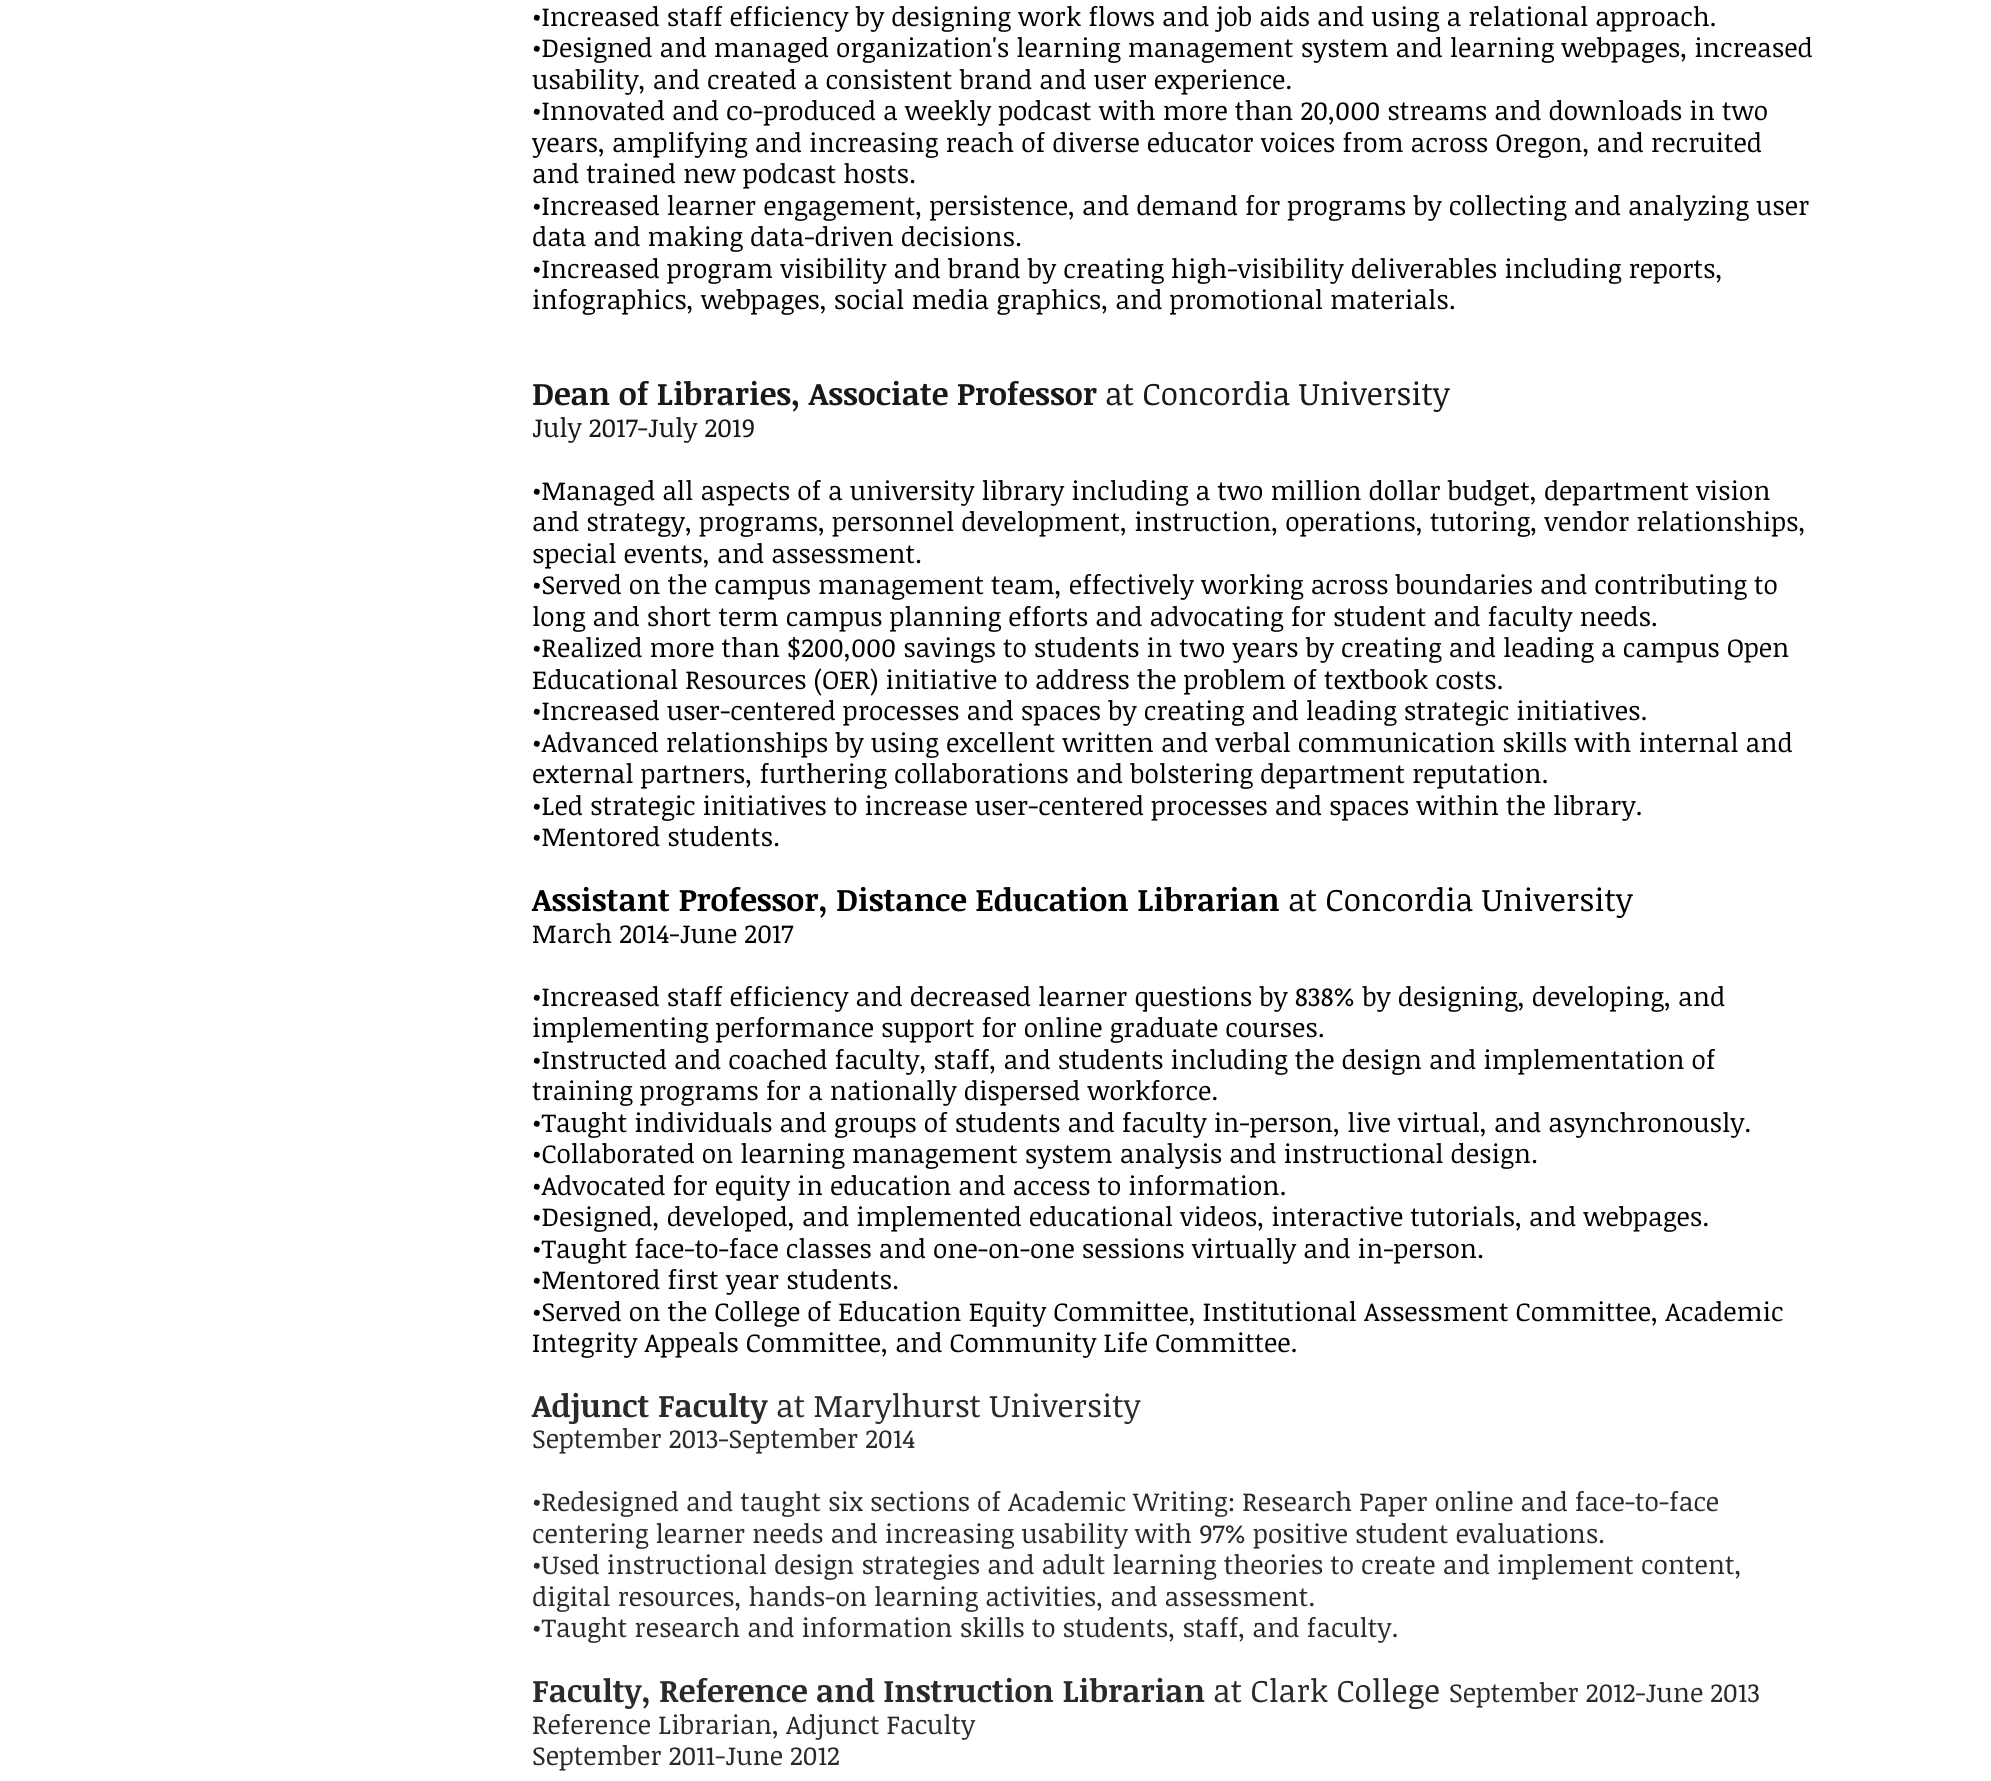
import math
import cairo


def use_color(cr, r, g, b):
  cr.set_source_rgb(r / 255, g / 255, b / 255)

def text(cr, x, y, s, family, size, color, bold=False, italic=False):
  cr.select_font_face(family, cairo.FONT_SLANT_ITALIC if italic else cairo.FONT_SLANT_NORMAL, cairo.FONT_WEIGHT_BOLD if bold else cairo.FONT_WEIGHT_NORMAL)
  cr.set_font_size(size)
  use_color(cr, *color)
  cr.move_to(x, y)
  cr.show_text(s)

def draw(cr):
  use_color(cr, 255, 255, 255)
  cr.paint()
  text(cr, 532, 26, "•Increased staff efficiency by designing work flows and job aids and using a relational approach.", "Noticia Text", 26.25, (0, 0, 0))
  text(cr, 532, 57, "•Designed and managed organization's learning management system and learning webpages, increased", "Noticia Text", 26.25, (0, 0, 0))
  text(cr, 532, 89, "usability, and created a consistent brand and user experience.", "Noticia Text", 26.25, (0, 0, 0))
  text(cr, 532, 120, "•Innovated and co-produced a weekly podcast with more than 20,000 streams and downloads in two", "Noticia Text", 26.25, (0, 0, 0))
  text(cr, 532, 152, "years, amplifying and increasing reach of diverse educator voices from across Oregon, and recruited", "Noticia Text", 26.25, (0, 0, 0))
  text(cr, 532, 183, "and trained new podcast hosts.", "Noticia Text", 26.25, (0, 0, 0))
  text(cr, 532, 215, "•Increased learner engagement, persistence, and demand for programs by collecting and analyzing user", "Noticia Text", 26.25, (0, 0, 0))
  text(cr, 532, 246, "data and making data-driven decisions.", "Noticia Text", 26.25, (0, 0, 0))
  text(cr, 532, 278, "•Increased program visibility and brand by creating high-visibility deliverables including reports,", "Noticia Text", 26.25, (0, 0, 0))
  text(cr, 532, 309, "infographics, webpages, social media graphics, and promotional materials.", "Noticia Text", 26.25, (0, 0, 0))
  text(cr, 532, 405, "Dean of Libraries, Associate Professor", "Noticia Text", 31.5, (24, 25, 25), bold=True)
  text(cr, 1105, 405, "at Concordia University", "Noticia Text", 31.5, (24, 25, 25))
  text(cr, 532, 437, "July 2017-July 2019", "Noticia Text", 26.25, (24, 25, 25))
  text(cr, 532, 500, "•Managed all aspects of a university library including a two million dollar budget, department vision", "Noticia Text", 26.25, (0, 0, 0))
  text(cr, 532, 531, "and strategy, programs, personnel development, instruction, operations, tutoring, vendor relationships,", "Noticia Text", 26.25, (0, 0, 0))
  text(cr, 532, 563, "special events, and assessment.", "Noticia Text", 26.25, (0, 0, 0))
  text(cr, 532, 594, "•Served on the campus management team, effectively working across boundaries and contributing to", "Noticia Text", 26.25, (0, 0, 0))
  text(cr, 532, 626, "long and short term campus planning efforts and advocating for student and faculty needs.", "Noticia Text", 26.25, (0, 0, 0))
  text(cr, 532, 657, "•Realized more than $200,000 savings to students in two years by creating and leading a campus Open", "Noticia Text", 26.25, (0, 0, 0))
  text(cr, 532, 689, "Educational Resources (OER) initiative to address the problem of textbook costs.", "Noticia Text", 26.25, (0, 0, 0))
  text(cr, 532, 720, "•Increased user-centered processes and spaces by creating and leading strategic initiatives.", "Noticia Text", 26.25, (0, 0, 0))
  text(cr, 532, 752, "•Advanced relationships by using excellent written and verbal communication skills with internal and", "Noticia Text", 26.25, (0, 0, 0))
  text(cr, 532, 783, "external partners, furthering collaborations and bolstering department reputation.", "Noticia Text", 26.25, (0, 0, 0))
  text(cr, 532, 815, "•Led strategic initiatives to increase user-centered processes and spaces within the library.", "Noticia Text", 26.25, (0, 0, 0))
  text(cr, 532, 846, "•Mentored students.", "Noticia Text", 26.25, (0, 0, 0))
  text(cr, 532, 911, "Assistant Professor, Distance Education Librarian", "Noticia Text", 31.5, (0, 0, 0), bold=True)
  text(cr, 1288, 911, "at Concordia University", "Noticia Text", 31.5, (0, 0, 0))
  text(cr, 532, 943, "March 2014-June 2017", "Noticia Text", 26.25, (0, 0, 0))
  text(cr, 532, 1006, "•Increased staff efficiency and decreased learner questions by 838% by designing, developing, and", "Noticia Text", 26.25, (0, 0, 0))
  text(cr, 532, 1037, "implementing performance support for online graduate courses.", "Noticia Text", 26.25, (0, 0, 0))
  text(cr, 532, 1069, "•Instructed and coached faculty, staff, and students including the design and implementation of", "Noticia Text", 26.25, (0, 0, 0))
  text(cr, 532, 1100, "training programs for a nationally dispersed workforce.", "Noticia Text", 26.25, (0, 0, 0))
  text(cr, 532, 1132, "•Taught individuals and groups of students and faculty in-person, live virtual, and asynchronously.", "Noticia Text", 26.25, (0, 0, 0))
  text(cr, 532, 1163, "•Collaborated on learning management system analysis and instructional design.", "Noticia Text", 26.25, (0, 0, 0))
  text(cr, 532, 1195, "•Advocated for equity in education and access to information.", "Noticia Text", 26.25, (0, 0, 0))
  text(cr, 532, 1226, "•Designed, developed, and implemented educational videos, interactive tutorials, and webpages.", "Noticia Text", 26.25, (0, 0, 0))
  text(cr, 532, 1258, "•Taught face-to-face classes and one-on-one sessions virtually and in-person.", "Noticia Text", 26.25, (0, 0, 0))
  text(cr, 532, 1289, "•Mentored first year students.", "Noticia Text", 26.25, (0, 0, 0))
  text(cr, 532, 1321, "•Served on the College of Education Equity Committee, Institutional Assessment Committee, Academic", "Noticia Text", 26.25, (0, 0, 0))
  text(cr, 532, 1352, "Integrity Appeals Committee, and Community Life Committee.", "Noticia Text", 26.25, (0, 0, 0))
  text(cr, 532, 1417, "Adjunct Faculty", "Noticia Text", 31.5, (42, 42, 42), bold=True)
  text(cr, 776, 1417, "at Marylhurst University", "Noticia Text", 31.5, (42, 42, 42))
  text(cr, 532, 1448, "September 2013-September 2014", "Noticia Text", 26.25, (42, 42, 42))
  text(cr, 532, 1511, "•Redesigned and taught six sections of Academic Writing: Research Paper online and face-to-face", "Noticia Text", 26.25, (42, 42, 42))
  text(cr, 532, 1543, "centering learner needs and increasing usability with 97% positive student evaluations.", "Noticia Text", 26.25, (42, 42, 42))
  text(cr, 532, 1574, "•Used instructional design strategies and adult learning theories to create and implement content,", "Noticia Text", 26.25, (42, 42, 42))
  text(cr, 532, 1606, "digital resources, hands-on learning activities, and assessment.", "Noticia Text", 26.25, (42, 42, 42))
  text(cr, 532, 1637, "•Taught research and information skills to students, staff, and faculty.", "Noticia Text", 26.25, (42, 42, 42))
  text(cr, 532, 1702, "Faculty, Reference and Instruction Librarian", "Noticia Text", 31.5, (42, 42, 42), bold=True)
  text(cr, 1213, 1702, "at Clark College", "Noticia Text", 31.5, (42, 42, 42))
  text(cr, 1449, 1702, "September 2012-June 2013", "Noticia Text", 26.25, (42, 42, 42))
  text(cr, 532, 1734, "Reference Librarian, Adjunct Faculty", "Noticia Text", 26.25, (42, 42, 42))
  text(cr, 532, 1765, "September 2011-June 2012", "Noticia Text", 26.25, (42, 42, 42))


surface = cairo.ImageSurface(cairo.FORMAT_RGB24, 1991, 1781)
cr = cairo.Context(surface)
options = cairo.FontOptions()
options.set_hint_metrics(cairo.HINT_METRICS_OFF)
options.set_hint_style(cairo.HINT_STYLE_NONE)
cr.set_font_options(options)
cr.set_miter_limit(4)
draw(cr)
surface.write_to_png("out.png")
